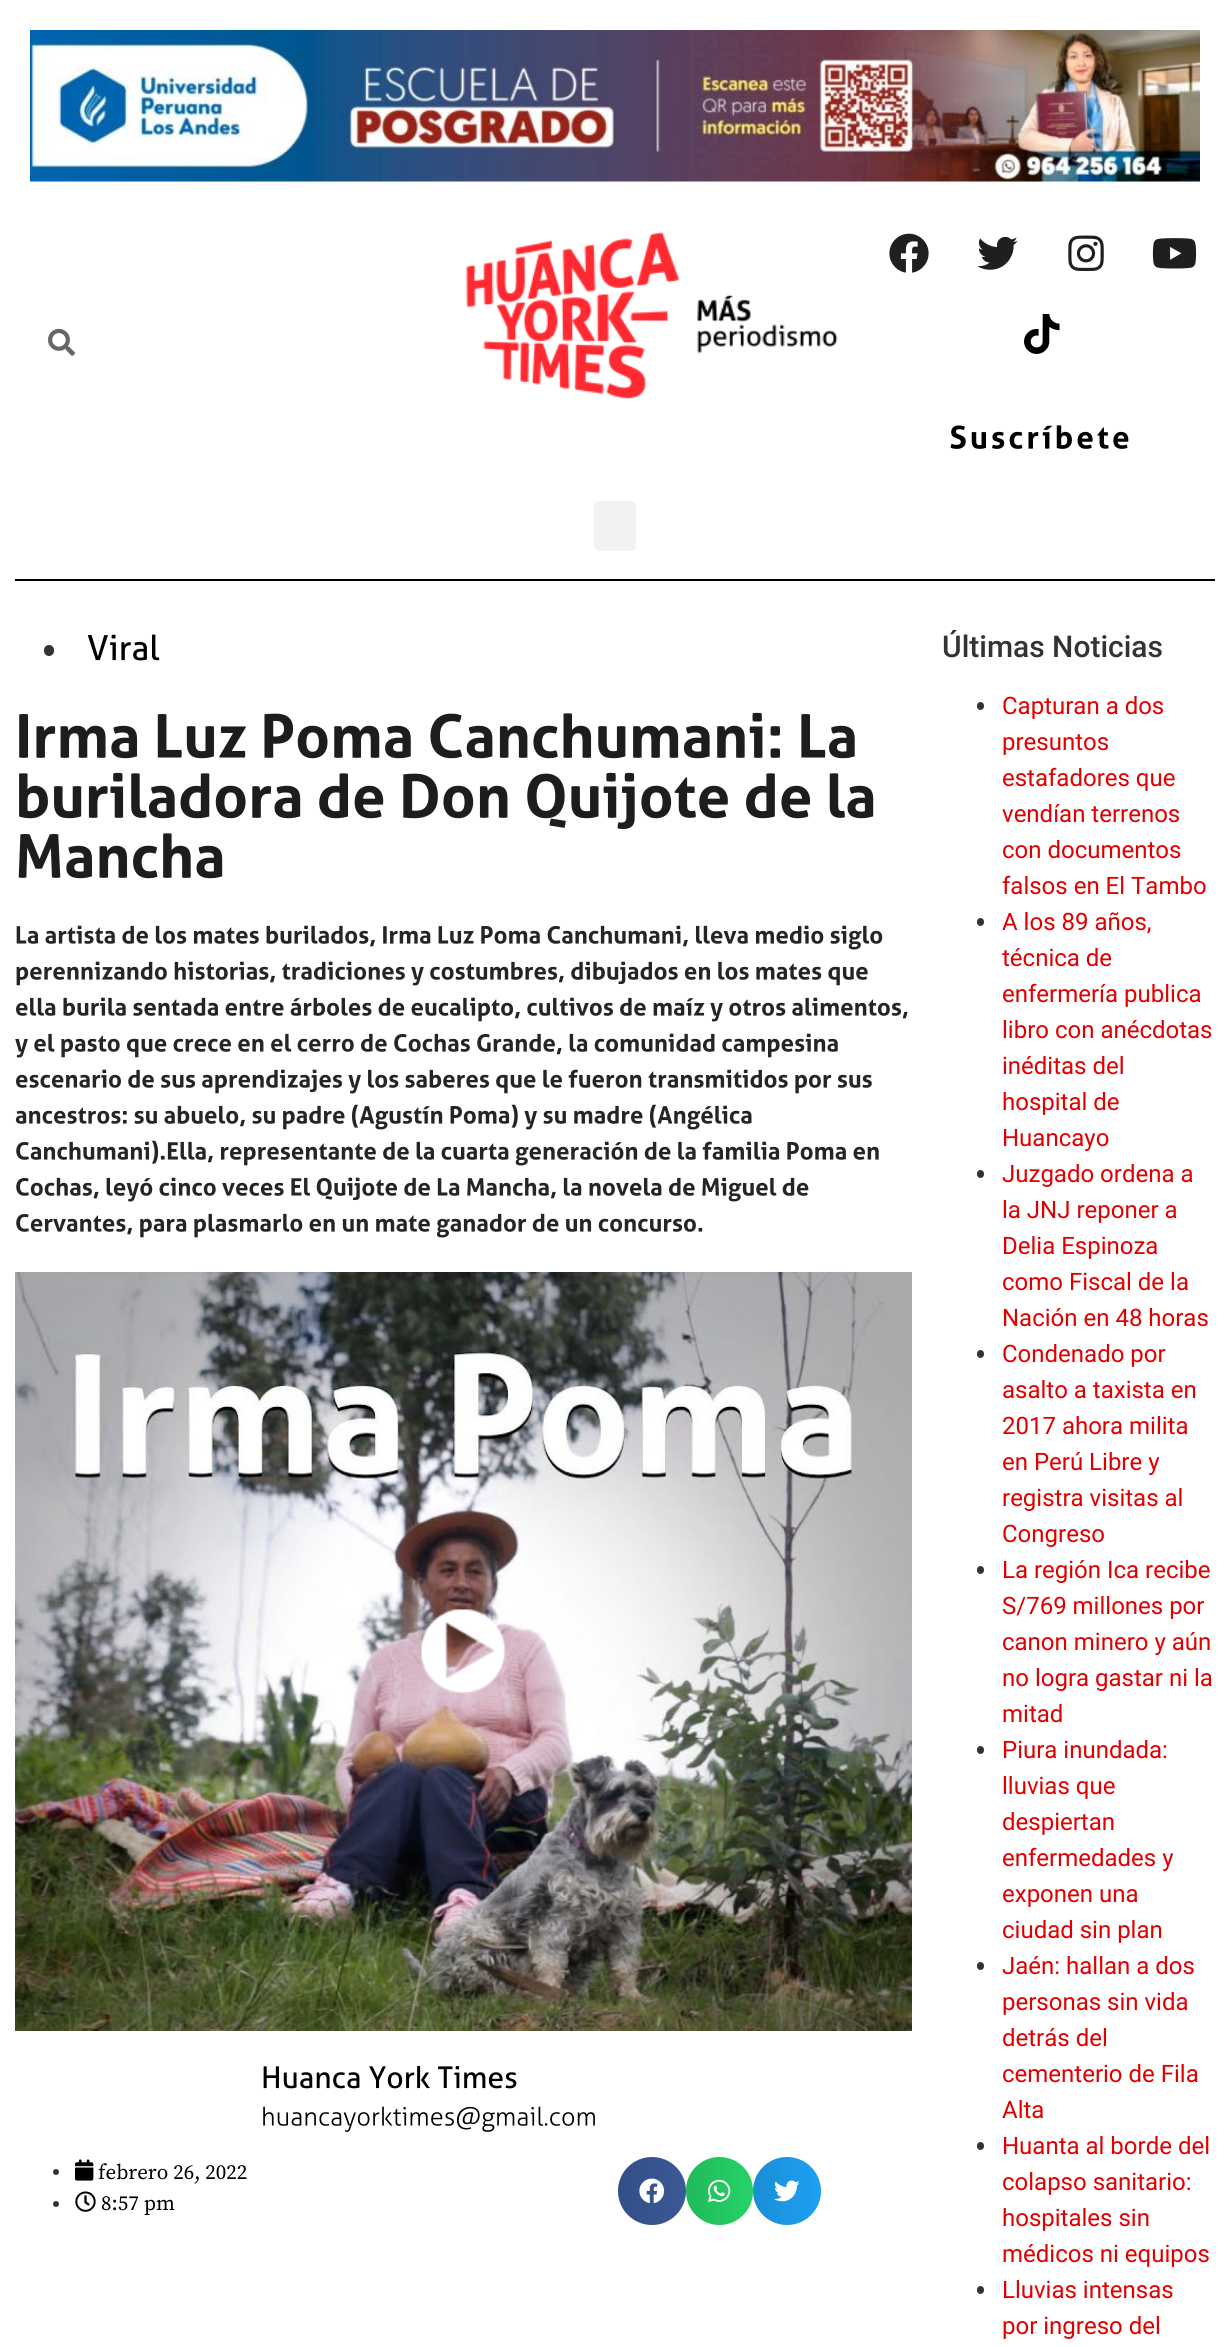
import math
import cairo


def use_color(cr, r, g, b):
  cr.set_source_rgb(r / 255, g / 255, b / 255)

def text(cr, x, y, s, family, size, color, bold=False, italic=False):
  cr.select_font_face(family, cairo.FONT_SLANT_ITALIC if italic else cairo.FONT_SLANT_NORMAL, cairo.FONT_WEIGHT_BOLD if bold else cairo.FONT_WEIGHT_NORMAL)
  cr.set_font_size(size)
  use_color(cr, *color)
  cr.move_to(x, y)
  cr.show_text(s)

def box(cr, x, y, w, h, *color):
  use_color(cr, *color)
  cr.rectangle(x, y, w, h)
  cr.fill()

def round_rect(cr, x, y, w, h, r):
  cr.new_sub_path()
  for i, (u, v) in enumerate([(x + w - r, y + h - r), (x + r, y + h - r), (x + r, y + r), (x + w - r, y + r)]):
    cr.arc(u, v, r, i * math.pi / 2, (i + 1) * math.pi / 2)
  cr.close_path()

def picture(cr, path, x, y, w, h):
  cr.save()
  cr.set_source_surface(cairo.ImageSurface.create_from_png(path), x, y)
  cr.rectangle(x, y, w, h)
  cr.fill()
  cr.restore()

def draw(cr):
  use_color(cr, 255, 255, 255)
  cr.paint()
  picture(cr, "img_01.png", 30, 30, 1170, 152)
  picture(cr, "img_02.png", 48, 328, 27, 28)
  picture(cr, "img_03.png", 466, 231, 372, 168)
  picture(cr, "img_04.png", 889, 233, 40, 40)
  picture(cr, "img_05.png", 977, 236, 41, 34)
  picture(cr, "img_06.png", 1068, 235, 36, 36)
  picture(cr, "img_07.png", 1152, 238, 45, 31)
  picture(cr, "img_08.png", 1024, 314, 36, 40)
  picture(cr, "img_09.png", 950, 425, 179, 24)
  use_color(cr, 242, 242, 242)
  round_rect(cr, 594, 501, 42, 50, 5)
  cr.fill()
  box(cr, 15, 579, 1200, 2, 0, 0, 0)
  use_color(cr, 51, 51, 51)
  round_rect(cr, 44, 645, 10, 11, 5)
  cr.fill()
  picture(cr, "img_10.png", 87, 634, 73, 27)
  picture(cr, "img_11.png", 19, 712, 836, 47)
  picture(cr, "img_12.png", 19, 772, 855, 57)
  picture(cr, "img_13.png", 18, 833, 205, 46)
  picture(cr, "img_14.png", 16, 925, 867, 25)
  picture(cr, "img_15.png", 16, 961, 852, 25)
  picture(cr, "img_16.png", 16, 997, 892, 25)
  picture(cr, "img_17.png", 15, 1033, 823, 25)
  picture(cr, "img_18.png", 16, 1069, 856, 25)
  picture(cr, "img_19.png", 15, 1104, 737, 26)
  picture(cr, "img_20.png", 16, 1140, 863, 26)
  picture(cr, "img_21.png", 16, 1177, 793, 25)
  picture(cr, "img_22.png", 16, 1213, 687, 25)
  picture(cr, "img_23.png", 15, 1272, 897, 759)
  picture(cr, "img_24.png", 421, 1609, 85, 85)
  picture(cr, "img_25.png", 263, 2065, 254, 24)
  picture(cr, "img_26.png", 263, 2106, 332, 26)
  cr.arc(56, 2172, 3, 0, 2 * math.pi)
  cr.fill()
  picture(cr, "img_27.png", 75, 2159, 19, 22)
  cr.arc(56, 2204, 3, 0, 2 * math.pi)
  cr.fill()
  picture(cr, "img_28.png", 75, 2191, 21, 21)
  use_color(cr, 59, 89, 152)
  cr.arc(652, 2191, 34, 0, 2 * math.pi)
  cr.fill()
  gradient = cairo.LinearGradient(618, 2191, 686, 2191)
  gradient.add_color_stop_rgba(0, 0, 0, 0, 0.12)
  gradient.add_color_stop_rgba(1, 0, 0, 0, 0)
  cr.set_source(gradient)
  cr.arc(652, 2191, 34, 0, 2 * math.pi)
  cr.fill()
  picture(cr, "img_29.png", 639, 2178, 26, 26)
  use_color(cr, 37, 211, 102)
  round_rect(cr, 686, 2157, 67, 68, 33.5)
  cr.fill()
  gradient = cairo.LinearGradient(686, 2191, 753, 2191)
  gradient.add_color_stop_rgba(0, 0, 0, 0, 0.12)
  gradient.add_color_stop_rgba(1, 0, 0, 0, 0)
  cr.set_source(gradient)
  round_rect(cr, 686, 2157, 67, 68, 33.5)
  cr.fill()
  picture(cr, "img_30.png", 708, 2179, 23, 23)
  use_color(cr, 29, 161, 242)
  cr.arc(787, 2191, 34, 0, 2 * math.pi)
  cr.fill()
  gradient = cairo.LinearGradient(753, 2191, 821, 2191)
  gradient.add_color_stop_rgba(0, 0, 0, 0, 0.12)
  gradient.add_color_stop_rgba(1, 0, 0, 0, 0)
  cr.set_source(gradient)
  cr.arc(787, 2191, 34, 0, 2 * math.pi)
  cr.fill()
  picture(cr, "img_31.png", 774, 2180, 26, 22)
  use_color(cr, 51, 51, 51)
  round_rect(cr, 977, 702, 7, 8, 3.5)
  cr.fill()
  round_rect(cr, 977, 918, 7, 8, 3.5)
  cr.fill()
  round_rect(cr, 977, 1170, 7, 8, 3.5)
  cr.fill()
  round_rect(cr, 977, 1350, 7, 8, 3.5)
  cr.fill()
  round_rect(cr, 977, 1566, 7, 8, 3.5)
  cr.fill()
  round_rect(cr, 977, 1746, 7, 8, 3.5)
  cr.fill()
  round_rect(cr, 977, 1962, 7, 8, 3.5)
  cr.fill()
  round_rect(cr, 977, 2142, 7, 8, 3.5)
  cr.fill()
  round_rect(cr, 977, 2286, 7, 8, 3.5)
  cr.fill()
  text(cr, 98, 2179, "febrero 26, 2022", "Source Serif Pro", 21, (0, 0, 0))
  text(cr, 101, 2210, "8:57 pm", "Source Serif Pro", 21, (0, 0, 0))
  text(cr, 942, 657, "Últimas Noticias", "Roboto Medium", 30, (51, 51, 51))
  text(cr, 1002, 714, "Capturan a dos", "Roboto", 24, (224, 0, 0))
  text(cr, 1002, 750, "presuntos", "Roboto", 24, (224, 0, 0))
  text(cr, 1002, 786, "estafadores que", "Roboto", 24, (224, 0, 0))
  text(cr, 1002, 822, "vendían terrenos", "Roboto", 24, (224, 0, 0))
  text(cr, 1002, 858, "con documentos", "Roboto", 24, (224, 0, 0))
  text(cr, 1002, 894, "falsos en El Tambo", "Roboto", 24, (224, 0, 0))
  text(cr, 1002, 930, "A los 89 años,", "Roboto", 24, (224, 0, 0))
  text(cr, 1002, 966, "técnica de", "Roboto", 24, (224, 0, 0))
  text(cr, 1002, 1002, "enfermería publica", "Roboto", 24, (224, 0, 0))
  text(cr, 1002, 1038, "libro con anécdotas", "Roboto", 24, (224, 0, 0))
  text(cr, 1002, 1074, "inéditas del", "Roboto", 24, (224, 0, 0))
  text(cr, 1002, 1110, "hospital de", "Roboto", 24, (224, 0, 0))
  text(cr, 1002, 1146, "Huancayo", "Roboto", 24, (224, 0, 0))
  text(cr, 1002, 1182, "Juzgado ordena a", "Roboto", 24, (224, 0, 0))
  text(cr, 1002, 1218, "la JNJ reponer a", "Roboto", 24, (224, 0, 0))
  text(cr, 1002, 1254, "Delia Espinoza", "Roboto", 24, (224, 0, 0))
  text(cr, 1002, 1290, "como Fiscal de la", "Roboto", 24, (224, 0, 0))
  text(cr, 1002, 1326, "Nación en 48 horas", "Roboto", 24, (224, 0, 0))
  text(cr, 1002, 1362, "Condenado por", "Roboto", 24, (224, 0, 0))
  text(cr, 1002, 1398, "asalto a taxista en", "Roboto", 24, (224, 0, 0))
  text(cr, 1002, 1434, "2017 ahora milita", "Roboto", 24, (224, 0, 0))
  text(cr, 1002, 1470, "en Perú Libre y", "Roboto", 24, (224, 0, 0))
  text(cr, 1002, 1506, "registra visitas al", "Roboto", 24, (224, 0, 0))
  text(cr, 1002, 1542, "Congreso", "Roboto", 24, (224, 0, 0))
  text(cr, 1002, 1578, "La región Ica recibe", "Roboto", 24, (224, 0, 0))
  text(cr, 1002, 1614, "S/769 millones por", "Roboto", 24, (224, 0, 0))
  text(cr, 1002, 1650, "canon minero y aún", "Roboto", 24, (224, 0, 0))
  text(cr, 1002, 1686, "no logra gastar ni la", "Roboto", 24, (224, 0, 0))
  text(cr, 1002, 1722, "mitad", "Roboto", 24, (224, 0, 0))
  text(cr, 1002, 1758, "Piura inundada:", "Roboto", 24, (224, 0, 0))
  text(cr, 1002, 1794, "lluvias que", "Roboto", 24, (224, 0, 0))
  text(cr, 1002, 1830, "despiertan", "Roboto", 24, (224, 0, 0))
  text(cr, 1002, 1866, "enfermedades y", "Roboto", 24, (224, 0, 0))
  text(cr, 1002, 1902, "exponen una", "Roboto", 24, (224, 0, 0))
  text(cr, 1002, 1938, "ciudad sin plan", "Roboto", 24, (224, 0, 0))
  text(cr, 1002, 1974, "Jaén: hallan a dos", "Roboto", 24, (224, 0, 0))
  text(cr, 1002, 2010, "personas sin vida", "Roboto", 24, (224, 0, 0))
  text(cr, 1002, 2046, "detrás del", "Roboto", 24, (224, 0, 0))
  text(cr, 1002, 2082, "cementerio de Fila", "Roboto", 24, (224, 0, 0))
  text(cr, 1002, 2118, "Alta", "Roboto", 24, (224, 0, 0))
  text(cr, 1002, 2154, "Huanta al borde del", "Roboto", 24, (224, 0, 0))
  text(cr, 1002, 2190, "colapso sanitario:", "Roboto", 24, (224, 0, 0))
  text(cr, 1002, 2226, "hospitales sin", "Roboto", 24, (224, 0, 0))
  text(cr, 1002, 2262, "médicos ni equipos", "Roboto", 24, (224, 0, 0))
  text(cr, 1002, 2298, "Lluvias intensas", "Roboto", 24, (224, 0, 0))
  text(cr, 1002, 2334, "por ingreso del", "Roboto", 24, (224, 0, 0))


surface = cairo.ImageSurface(cairo.FORMAT_RGB24, 1229, 2347)
cr = cairo.Context(surface)
options = cairo.FontOptions()
options.set_hint_metrics(cairo.HINT_METRICS_OFF)
options.set_hint_style(cairo.HINT_STYLE_NONE)
cr.set_font_options(options)
cr.set_miter_limit(4)
draw(cr)
surface.write_to_png("out.png")
